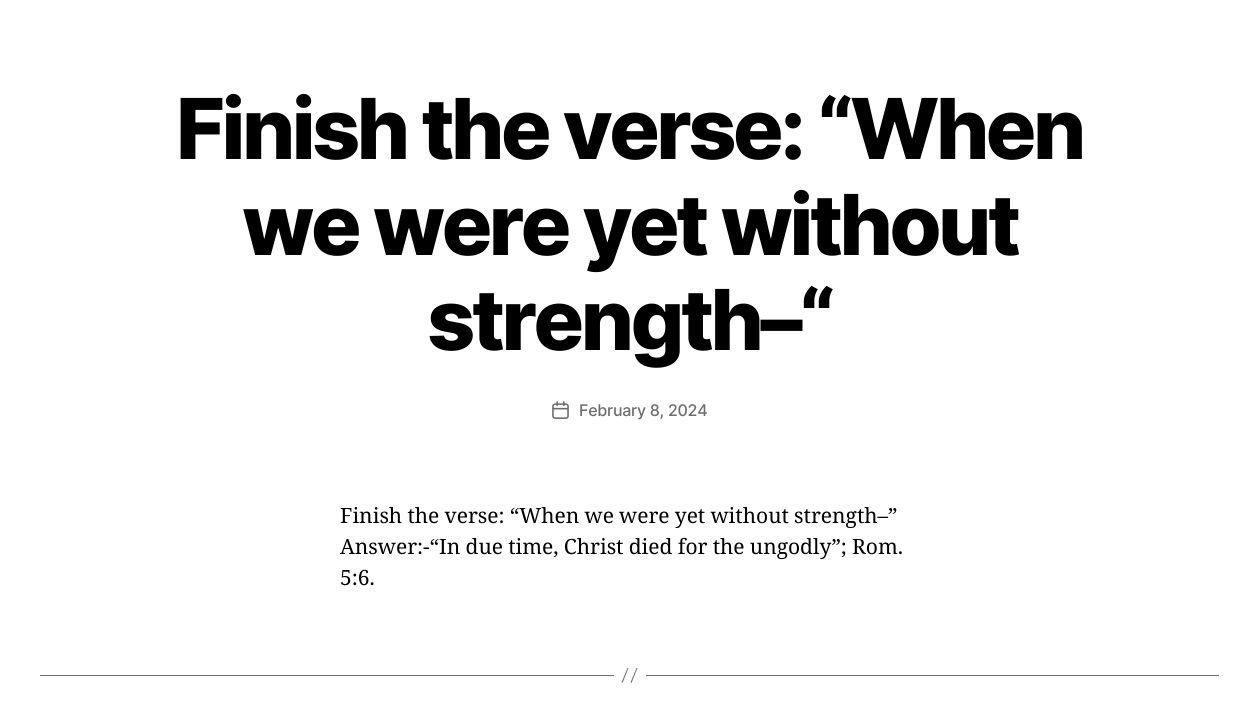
import math
import cairo


def use_color(cr, r, g, b):
  cr.set_source_rgb(r / 255, g / 255, b / 255)

def text(cr, x, y, s, family, size, color, bold=False, italic=False):
  cr.select_font_face(family, cairo.FONT_SLANT_ITALIC if italic else cairo.FONT_SLANT_NORMAL, cairo.FONT_WEIGHT_BOLD if bold else cairo.FONT_WEIGHT_NORMAL)
  cr.set_font_size(size)
  use_color(cr, *color)
  cr.move_to(x, y)
  cr.show_text(s)

def spaced_text(cr, x, y, s, letter, word):
  cr.move_to(x, y)
  for ch in s:
    cr.show_text(ch)
    cr.rel_move_to(letter + word * (ch == ' '), 0)

def box(cr, x, y, w, h, *color):
  use_color(cr, *color)
  cr.rectangle(x, y, w, h)
  cr.fill()

def picture(cr, path, x, y, w, h):
  cr.save()
  cr.set_source_surface(cairo.ImageSurface.create_from_png(path), x, y)
  cr.rectangle(x, y, w, h)
  cr.fill()
  cr.restore()

def draw(cr):
  use_color(cr, 255, 255, 255)
  cr.paint()
  picture(cr, "img_01.png", 552, 401, 17, 18)
  box(cr, 646, 675, 573, 1, 109, 109, 109)
  box(cr, 40, 675, 574, 1, 109, 109, 109)
  cr.new_path()
  cr.move_to(627.5, 668)
  cr.line_to(628.5, 668)
  cr.line_to(622.5, 683)
  cr.line_to(621.5, 682.5)
  cr.close_path()
  cr.move_to(636.5, 668)
  cr.line_to(637.5, 668)
  cr.line_to(631.5, 683)
  cr.line_to(630.5, 682.5)
  cr.close_path()
  cr.fill()
  cr.select_font_face("Inter ExtraBold")
  cr.set_font_size(84)
  use_color(cr, 0, 0, 0)
  spaced_text(cr, 176, 159, "Finish the verse: “When", -3.5, 0)
  spaced_text(cr, 242, 255, "we were yet without", -3.5, 0)
  spaced_text(cr, 427, 350, "strength–“", -3.5, 0)
  cr.select_font_face("Inter Medium")
  cr.set_font_size(16)
  use_color(cr, 109, 109, 109)
  spaced_text(cr, 579, 416, "February 8, 2024", -0.25, 0)
  cr.select_font_face("Noto Serif")
  cr.set_font_size(21)
  use_color(cr, 0, 0, 0)
  spaced_text(cr, 340, 523, "Finish the verse: “When we were yet without strength–”", 0, -0.25)
  spaced_text(cr, 340, 554, "Answer:-“In due time, Christ died for the ungodly”; Rom.", 0, -0.25)
  text(cr, 340, 585, "5:6.", "Noto Serif", 21, (0, 0, 0))


surface = cairo.ImageSurface(cairo.FORMAT_RGB24, 1259, 720)
cr = cairo.Context(surface)
options = cairo.FontOptions()
options.set_hint_metrics(cairo.HINT_METRICS_OFF)
options.set_hint_style(cairo.HINT_STYLE_NONE)
cr.set_font_options(options)
cr.set_miter_limit(4)
draw(cr)
surface.write_to_png("out.png")
